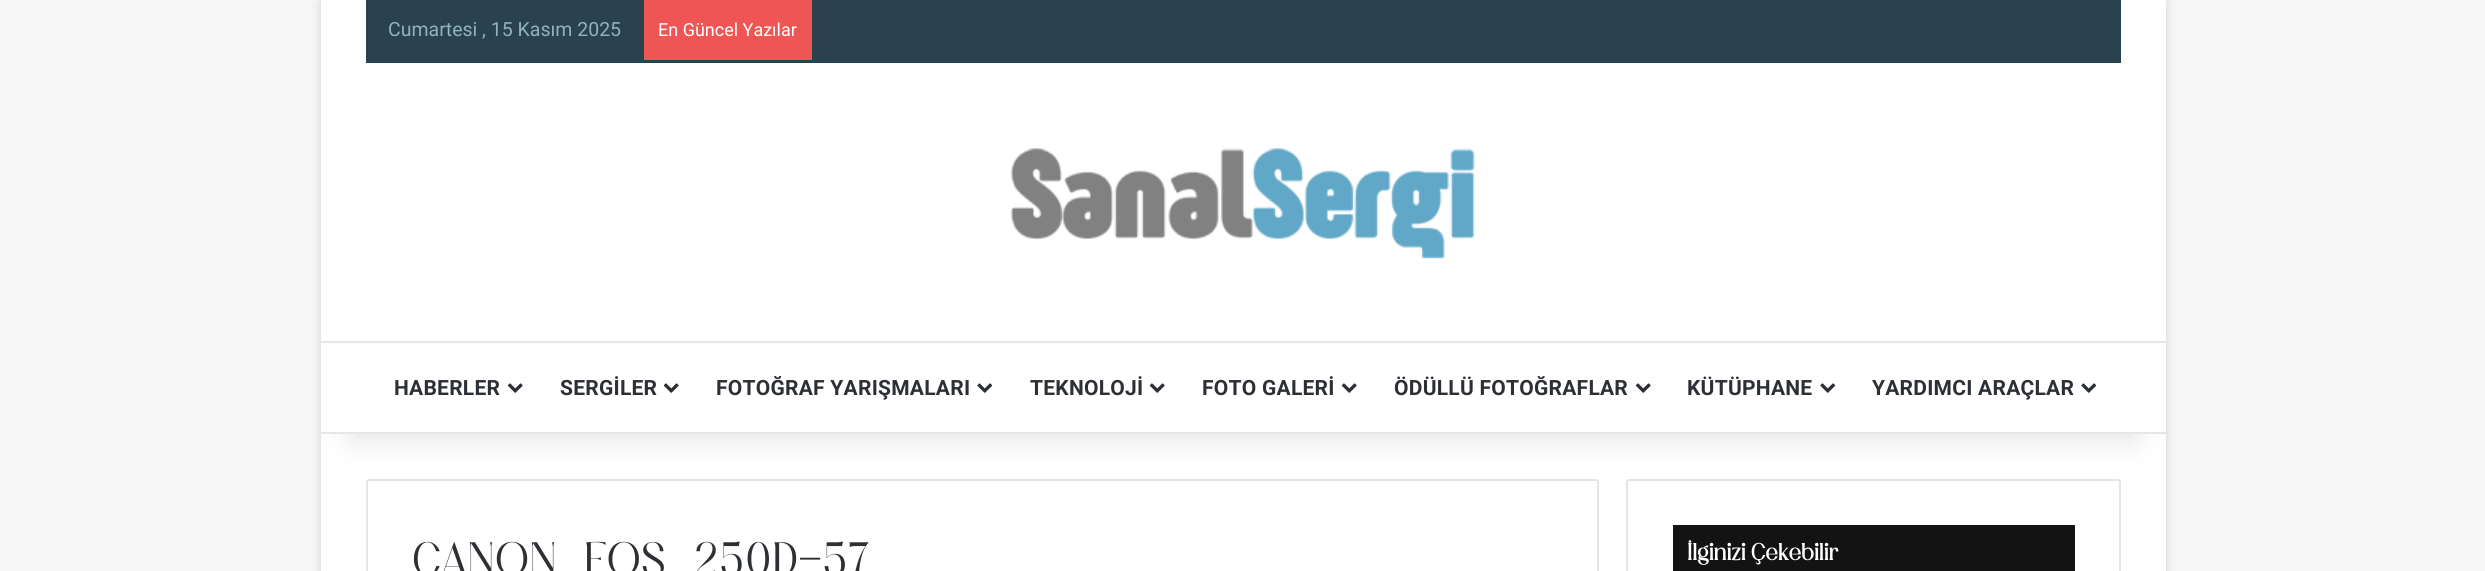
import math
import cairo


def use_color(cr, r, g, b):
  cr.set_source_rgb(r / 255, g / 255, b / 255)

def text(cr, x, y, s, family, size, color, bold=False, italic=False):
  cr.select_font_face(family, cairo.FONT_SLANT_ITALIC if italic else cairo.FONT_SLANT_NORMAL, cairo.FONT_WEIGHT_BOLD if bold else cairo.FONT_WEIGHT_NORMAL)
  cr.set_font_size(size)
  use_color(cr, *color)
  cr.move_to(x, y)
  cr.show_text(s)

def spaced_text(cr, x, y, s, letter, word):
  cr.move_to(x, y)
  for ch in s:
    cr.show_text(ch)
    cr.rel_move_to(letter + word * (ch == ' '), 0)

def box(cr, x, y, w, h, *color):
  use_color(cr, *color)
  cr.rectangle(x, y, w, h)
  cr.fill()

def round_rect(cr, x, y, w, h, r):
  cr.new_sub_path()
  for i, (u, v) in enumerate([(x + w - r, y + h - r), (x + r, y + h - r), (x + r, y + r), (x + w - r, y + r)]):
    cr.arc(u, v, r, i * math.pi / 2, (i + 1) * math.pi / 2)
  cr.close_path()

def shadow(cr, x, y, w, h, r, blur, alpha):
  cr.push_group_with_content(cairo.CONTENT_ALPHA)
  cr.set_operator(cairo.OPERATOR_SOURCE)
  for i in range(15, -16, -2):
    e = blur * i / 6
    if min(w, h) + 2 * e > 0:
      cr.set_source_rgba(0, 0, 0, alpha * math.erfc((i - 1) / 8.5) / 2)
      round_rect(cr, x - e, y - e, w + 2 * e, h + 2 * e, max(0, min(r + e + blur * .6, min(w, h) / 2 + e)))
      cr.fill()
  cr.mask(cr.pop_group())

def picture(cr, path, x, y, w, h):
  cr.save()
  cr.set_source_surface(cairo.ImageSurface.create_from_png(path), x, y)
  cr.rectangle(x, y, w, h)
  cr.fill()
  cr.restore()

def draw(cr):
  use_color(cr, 247, 247, 247)
  cr.paint()
  use_color(cr, 171, 171, 171)
  shadow(cr, 321, 2, 1845, 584, 0, 5, 0.5)
  box(cr, 321, 434, 1845, 137, 255, 255, 255)
  round_rect(cr, 367, 480, 1231, 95, 2)
  use_color(cr, 229, 229, 229)
  cr.stroke()
  round_rect(cr, 1627, 480, 493, 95, 2)
  cr.stroke()
  use_color(cr, 0, 0, 0)
  shadow(cr, 351, 68, 1785, 373, 0, 15, 0.1)
  box(cr, 321, 0, 1845, 432, 255, 255, 255)
  box(cr, 366, 0, 1755, 63, 42, 65, 80)
  box(cr, 644, 0, 168, 60, 240, 85, 85)
  picture(cr, "img_01.png", 1010, 148, 465, 111)
  box(cr, 321, 341, 1845, 2, 230, 230, 230)
  box(cr, 321, 432, 1845, 2, 230, 230, 230)
  picture(cr, "img_02.png", 507, 383, 16, 10)
  picture(cr, "img_02.png", 663, 383, 16, 10)
  picture(cr, "img_03.png", 977, 383, 16, 10)
  picture(cr, "img_02.png", 1149, 383, 16, 10)
  picture(cr, "img_02.png", 1341, 383, 16, 10)
  picture(cr, "img_02.png", 1635, 383, 16, 10)
  picture(cr, "img_03.png", 1820, 383, 16, 10)
  picture(cr, "img_03.png", 2081, 383, 16, 10)
  box(cr, 1673, 525, 402, 46, 19, 19, 19)
  text(cr, 388, 36, "Cumartesi , 15 Kasım 2025", "Roboto", 19.5, (144, 179, 187))
  text(cr, 658, 36, "En Güncel Yazılar", "Roboto", 18, (255, 255, 255))
  cr.select_font_face("Roboto", cairo.FONT_SLANT_NORMAL, cairo.FONT_WEIGHT_BOLD)
  cr.set_font_size(21)
  use_color(cr, 44, 47, 52)
  spaced_text(cr, 394, 395, "HABERLER", 0.25, 0)
  spaced_text(cr, 560, 395, "SERGİLER", 0.25, 0)
  spaced_text(cr, 716, 395, "FOTOĞRAF YARIŞMALARI", 0.25, 0)
  spaced_text(cr, 1030, 395, "TEKNOLOJİ", 0.25, 0)
  spaced_text(cr, 1202, 395, "FOTO GALERİ", 0.25, 0)
  spaced_text(cr, 1394, 395, "ÖDÜLLÜ FOTOĞRAFLAR", 0.25, 0)
  spaced_text(cr, 1687, 395, "KÜTÜPHANE", 0.25, 0)
  spaced_text(cr, 1872, 395, "YARDIMCI ARAÇLAR", 0.25, 0)
  cr.select_font_face("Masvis")
  cr.set_font_size(45)
  spaced_text(cr, 412, 575, "CANON_EOS_250D-57", 0.25, 0)
  text(cr, 1687, 560, "İlginizi Çekebilir", "Masvis", 22.5, (255, 255, 255), bold=True)


surface = cairo.ImageSurface(cairo.FORMAT_RGB24, 2485, 571)
cr = cairo.Context(surface)
options = cairo.FontOptions()
options.set_hint_metrics(cairo.HINT_METRICS_OFF)
options.set_hint_style(cairo.HINT_STYLE_NONE)
cr.set_font_options(options)
cr.set_miter_limit(4)
draw(cr)
surface.write_to_png("out.png")
